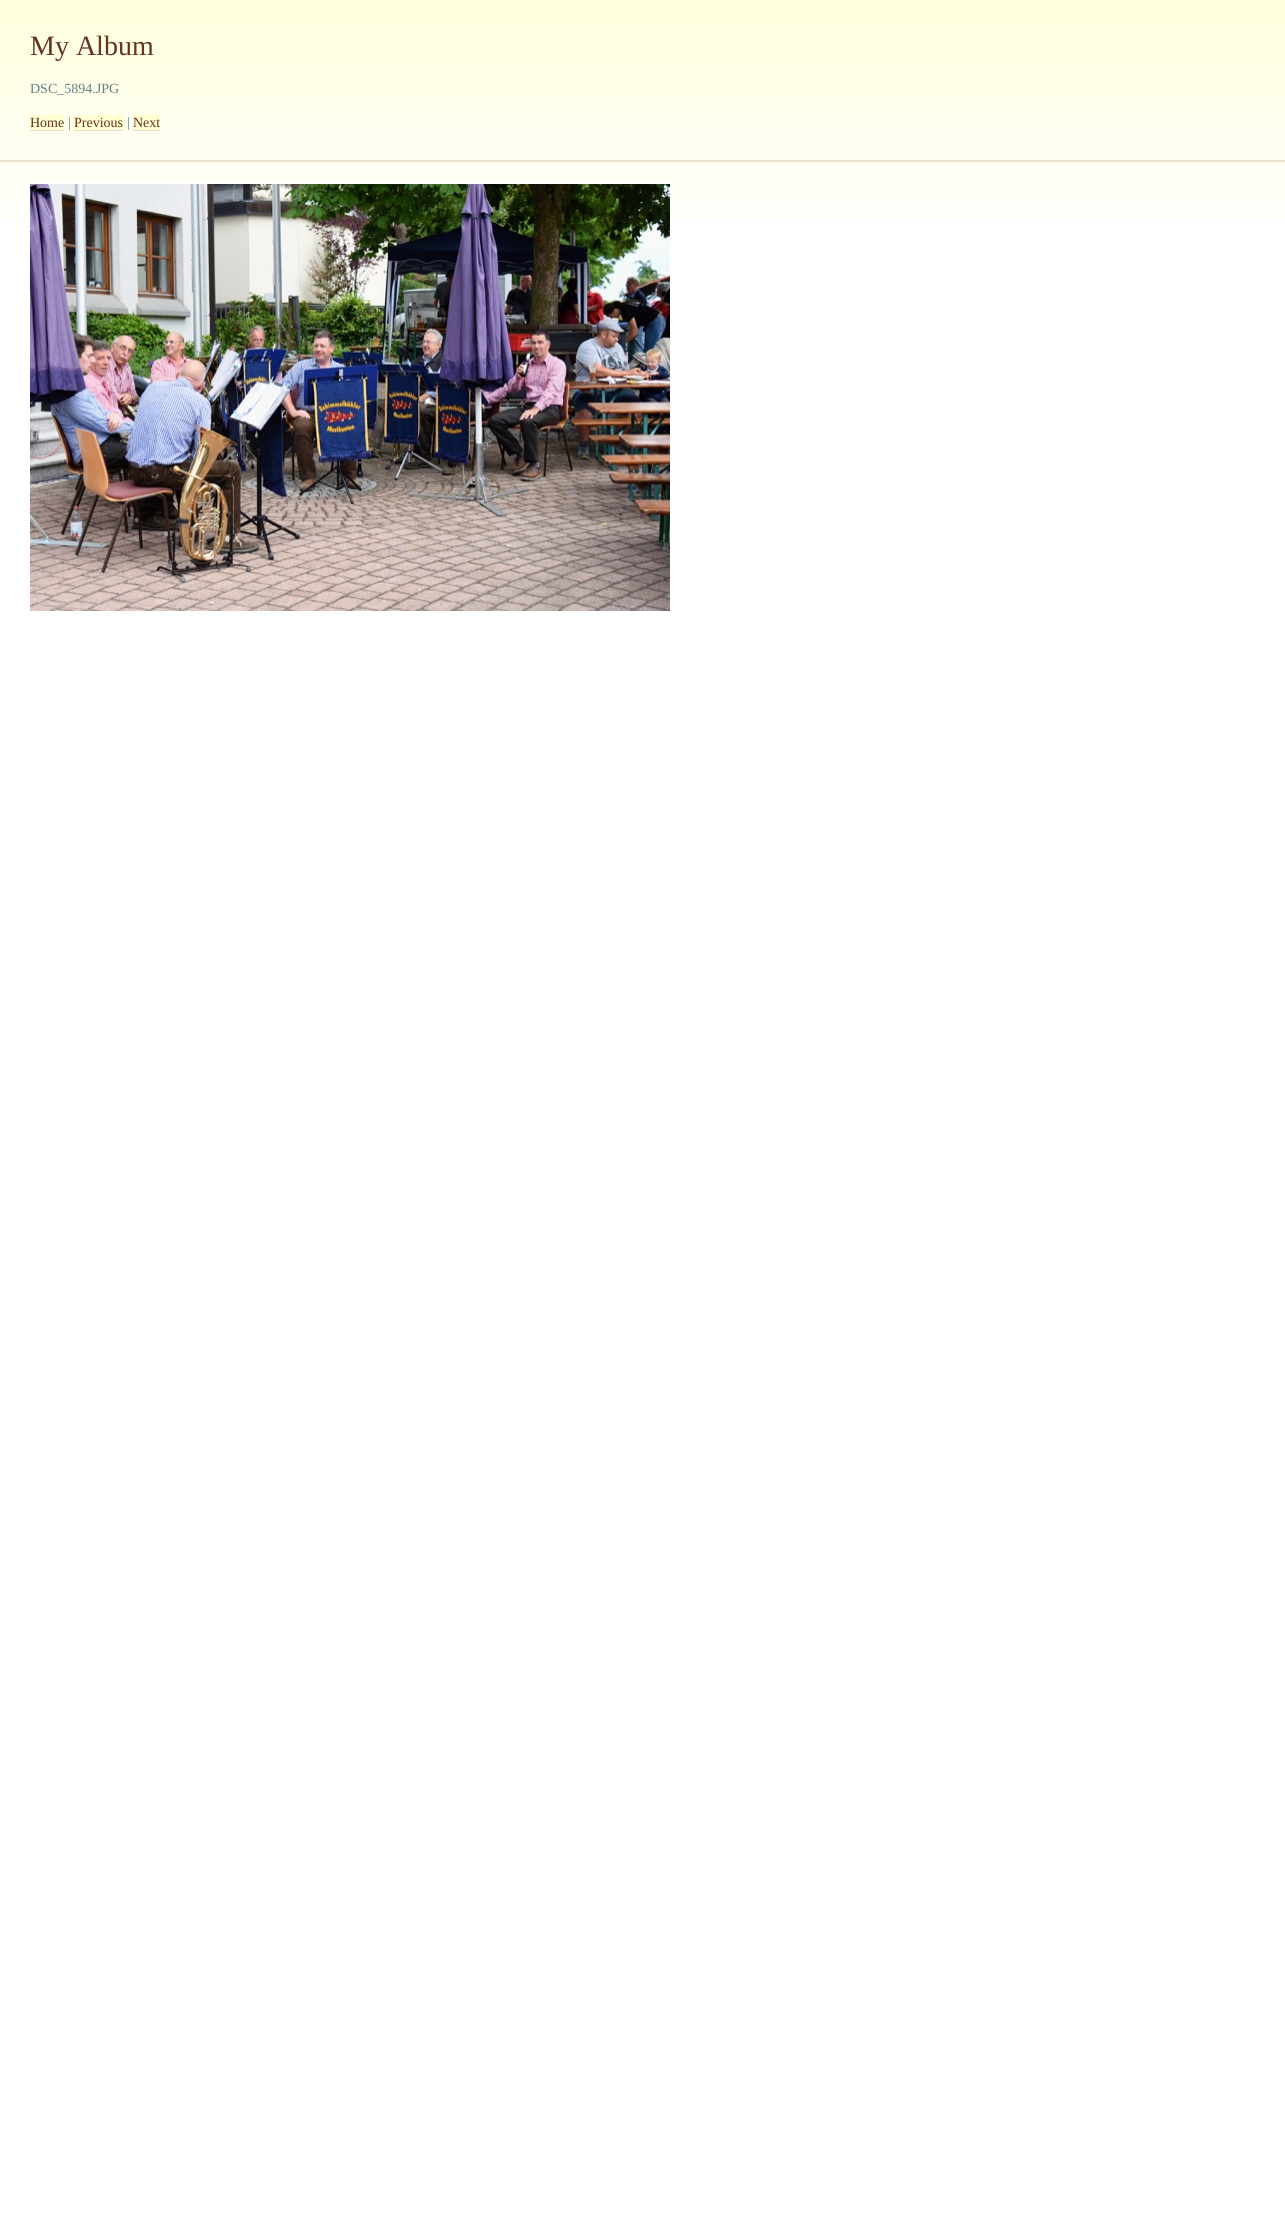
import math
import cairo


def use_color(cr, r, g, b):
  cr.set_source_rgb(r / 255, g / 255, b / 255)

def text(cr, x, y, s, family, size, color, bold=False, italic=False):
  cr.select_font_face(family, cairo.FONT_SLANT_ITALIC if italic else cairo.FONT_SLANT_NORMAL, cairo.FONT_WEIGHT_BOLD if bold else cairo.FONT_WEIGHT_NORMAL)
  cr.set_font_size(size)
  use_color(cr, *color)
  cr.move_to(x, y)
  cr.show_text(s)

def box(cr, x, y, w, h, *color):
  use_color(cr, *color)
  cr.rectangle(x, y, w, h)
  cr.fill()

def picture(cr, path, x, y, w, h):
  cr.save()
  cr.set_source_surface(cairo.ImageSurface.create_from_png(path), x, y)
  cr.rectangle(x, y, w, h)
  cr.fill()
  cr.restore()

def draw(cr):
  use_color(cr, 255, 255, 255)
  cr.paint()
  picture(cr, "img_01.png", 0, 0, 1285, 219)
  box(cr, 0, 160, 1285, 2, 231, 224, 202)
  box(cr, 30, 115, 34, 15, 254, 254, 209)
  box(cr, 30, 130, 34, 1, 229, 220, 216)
  box(cr, 74, 115, 49, 15, 254, 254, 209)
  box(cr, 74, 130, 49, 1, 229, 220, 216)
  box(cr, 133, 115, 27, 15, 254, 254, 209)
  box(cr, 133, 130, 27, 1, 229, 220, 216)
  cr.rectangle(29, 183, 642, 429)
  use_color(cr, 255, 255, 255)
  cr.stroke()
  picture(cr, "img_02.png", 30, 184, 640, 427)
  text(cr, 30, 55, "My Album", "Liberation Serif", 28, (100, 52, 32))
  text(cr, 30, 93, "DSC_5894.JPG", "Liberation Serif", 14, (99, 127, 135))
  text(cr, 30, 127, "Home", "Liberation Serif", 14, (100, 52, 32))
  text(cr, 68, 127, "|", "Liberation Serif", 14, (99, 127, 135))
  text(cr, 74, 127, "Previous", "Liberation Serif", 14, (100, 52, 32))
  text(cr, 127, 127, "|", "Liberation Serif", 14, (99, 127, 135))
  text(cr, 133, 127, "Next", "Liberation Serif", 14, (100, 52, 32))


surface = cairo.ImageSurface(cairo.FORMAT_RGB24, 1285, 2239)
cr = cairo.Context(surface)
options = cairo.FontOptions()
options.set_hint_metrics(cairo.HINT_METRICS_OFF)
options.set_hint_style(cairo.HINT_STYLE_NONE)
cr.set_font_options(options)
cr.set_miter_limit(4)
draw(cr)
surface.write_to_png("out.png")
